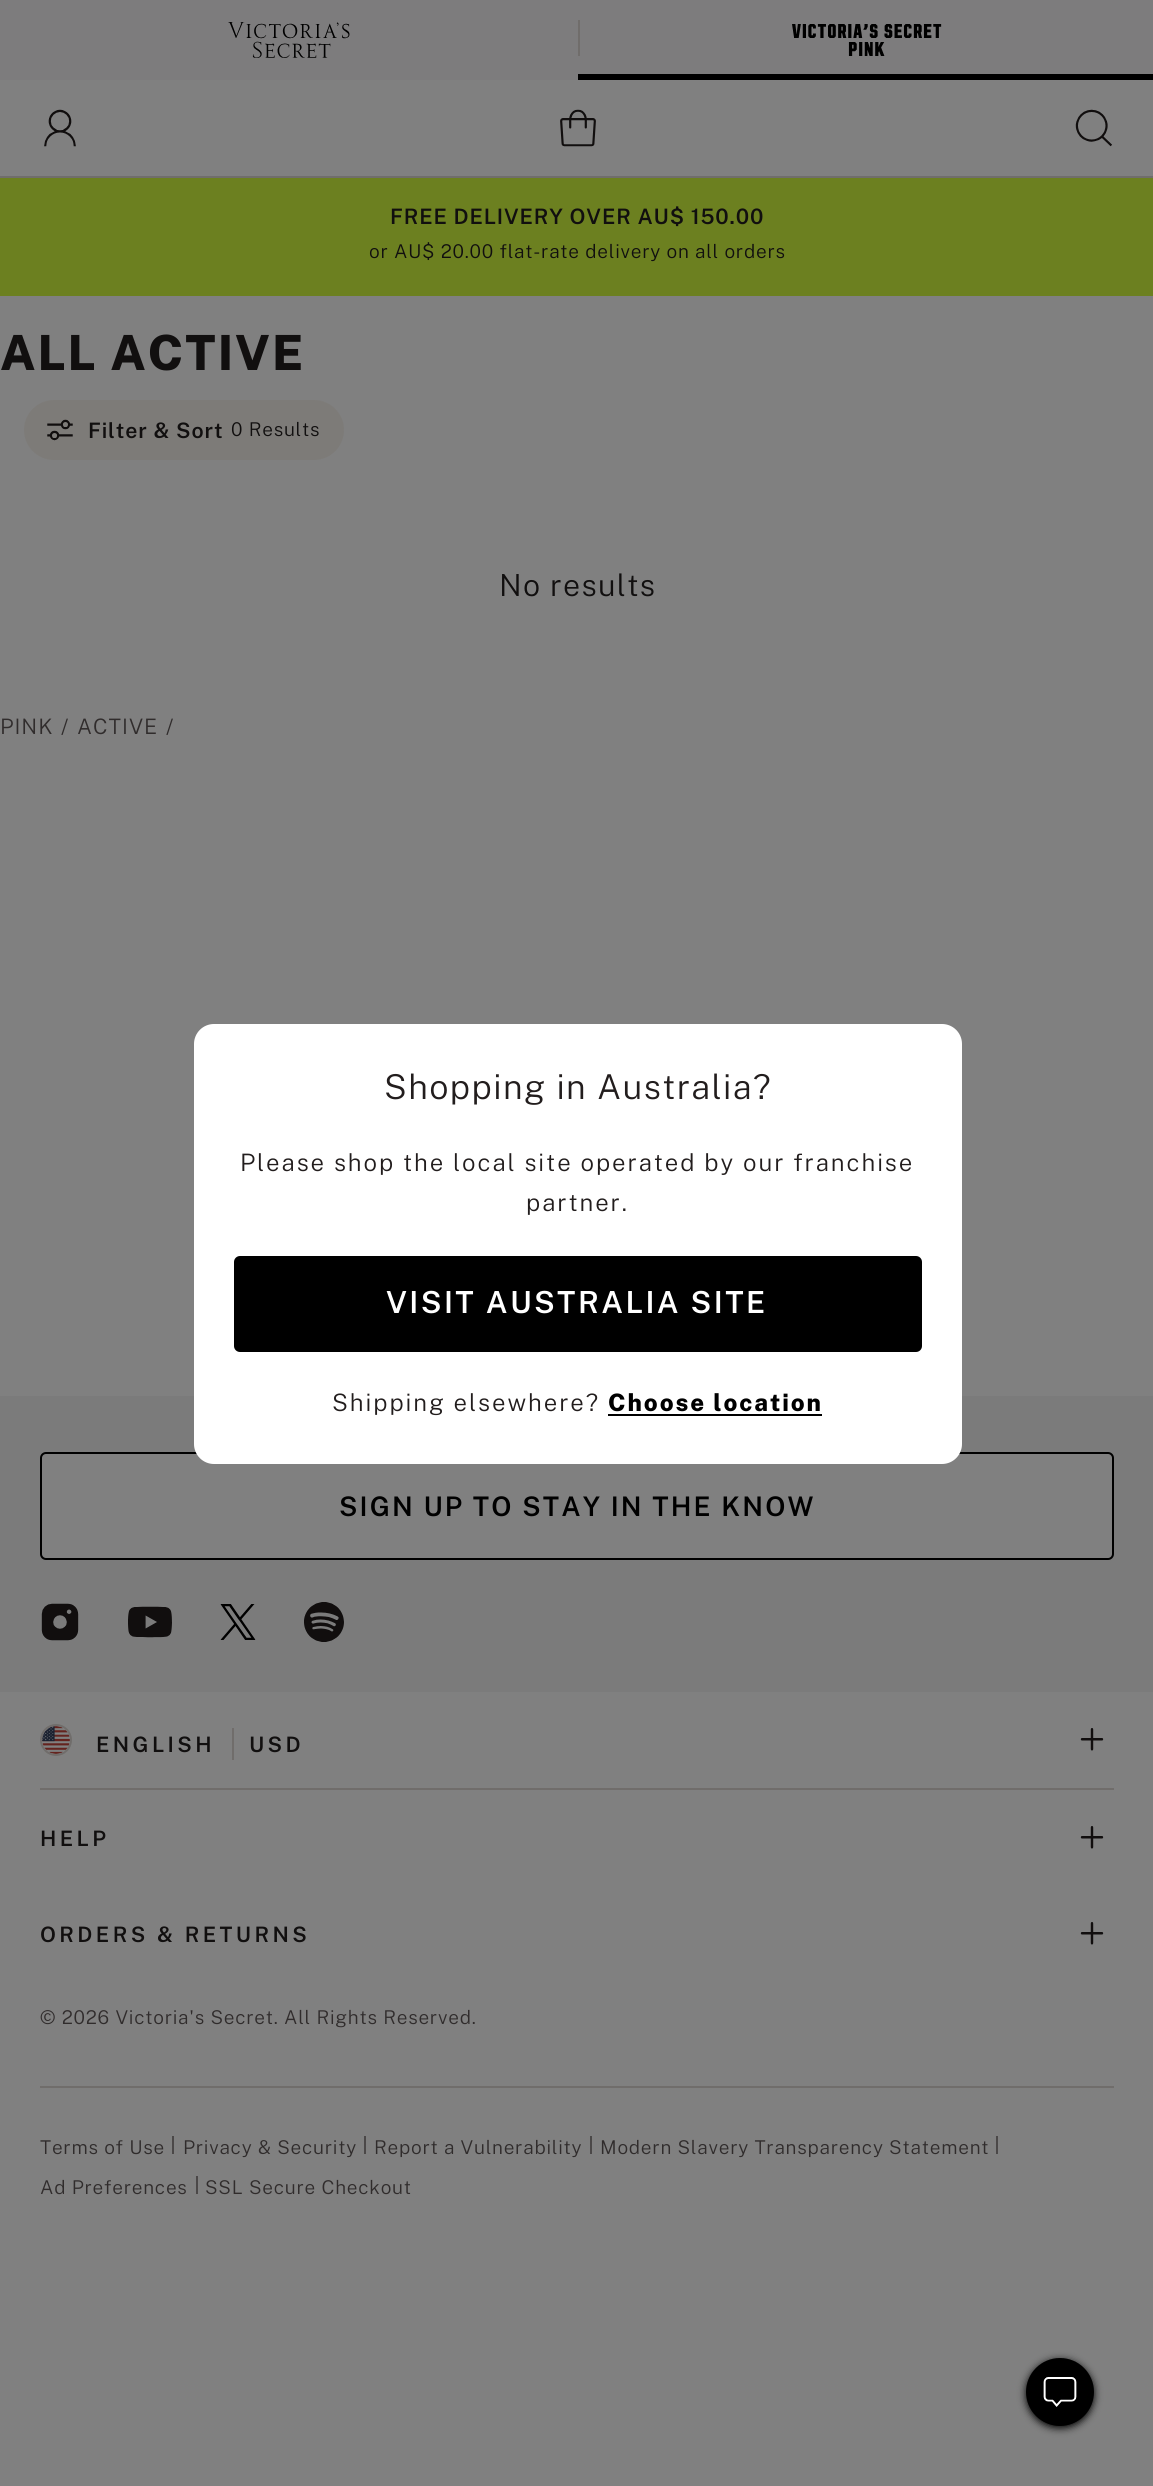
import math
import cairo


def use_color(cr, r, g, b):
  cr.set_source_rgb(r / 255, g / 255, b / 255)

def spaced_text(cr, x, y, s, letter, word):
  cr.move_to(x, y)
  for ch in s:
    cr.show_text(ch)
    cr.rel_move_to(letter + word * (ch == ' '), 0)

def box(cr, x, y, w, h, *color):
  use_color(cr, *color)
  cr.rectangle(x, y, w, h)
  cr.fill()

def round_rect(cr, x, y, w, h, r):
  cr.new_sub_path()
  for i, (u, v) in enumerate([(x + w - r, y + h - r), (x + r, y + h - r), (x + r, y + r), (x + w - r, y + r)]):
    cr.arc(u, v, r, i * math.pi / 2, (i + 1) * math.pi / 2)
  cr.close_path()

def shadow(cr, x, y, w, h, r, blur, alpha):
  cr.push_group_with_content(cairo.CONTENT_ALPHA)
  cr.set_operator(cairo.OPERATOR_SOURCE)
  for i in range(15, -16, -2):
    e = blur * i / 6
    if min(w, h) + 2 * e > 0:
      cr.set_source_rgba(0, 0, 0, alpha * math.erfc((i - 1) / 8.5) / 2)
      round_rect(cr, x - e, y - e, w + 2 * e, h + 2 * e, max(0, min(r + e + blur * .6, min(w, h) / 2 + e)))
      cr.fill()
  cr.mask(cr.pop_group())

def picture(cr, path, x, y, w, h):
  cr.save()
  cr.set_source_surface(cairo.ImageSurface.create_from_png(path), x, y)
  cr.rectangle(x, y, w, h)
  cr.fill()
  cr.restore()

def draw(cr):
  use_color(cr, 128, 128, 128)
  cr.paint()
  box(cr, 0, 0, 1153, 80, 125, 124, 125)
  picture(cr, "img_01.png", 228, 22, 122, 36)
  box(cr, 578, 74, 575, 6, 0, 0, 0)
  box(cr, 578, 20, 2, 36, 112, 109, 107)
  picture(cr, "img_02.png", 792, 24, 150, 32)
  box(cr, 0, 176, 1153, 2, 112, 109, 107)
  picture(cr, "img_03.png", 44, 109, 32, 38)
  picture(cr, "img_04.png", 560, 109, 36, 38)
  picture(cr, "img_05.png", 1075, 109, 37, 38)
  box(cr, 0, 178, 1153, 118, 108, 128, 32)
  use_color(cr, 125, 123, 120)
  round_rect(cr, 24, 400, 320, 60, 30)
  cr.fill()
  picture(cr, "img_06.png", 47, 419, 26, 22)
  use_color(cr, 0, 0, 0)
  shadow(cr, 1026, 2360, 68, 68, 34, 4, 1)
  use_color(cr, 0, 0, 0)
  cr.arc(1060, 2392, 34, 0, 2 * math.pi)
  cr.fill()
  picture(cr, "img_07.png", 1043, 2377, 34, 30)
  box(cr, 0, 1396, 1153, 296, 123, 123, 123)
  use_color(cr, 128, 128, 128)
  round_rect(cr, 41, 1453, 1072, 106, 5)
  cr.fill_preserve()
  use_color(cr, 0, 0, 0)
  cr.stroke()
  picture(cr, "img_08.png", 41, 1603, 38, 38)
  picture(cr, "img_09.png", 128, 1606, 44, 32)
  picture(cr, "img_10.png", 220, 1604, 36, 36)
  picture(cr, "img_11.png", 304, 1602, 40, 40)
  box(cr, 40, 1788, 1074, 2, 112, 109, 107)
  cr.arc(56, 1740, 15, 0, 2 * math.pi)
  cr.stroke()
  picture(cr, "img_12.png", 42, 1726, 28, 28)
  box(cr, 232, 1728, 2, 32, 112, 109, 107)
  picture(cr, "img_13.png", 1080, 1728, 24, 23)
  picture(cr, "img_13.png", 1080, 1826, 24, 23)
  picture(cr, "img_13.png", 1080, 1922, 24, 23)
  box(cr, 40, 2086, 1074, 2, 112, 109, 107)
  box(cr, 172, 2136, 2, 18, 75, 72, 72)
  box(cr, 364, 2136, 2, 18, 75, 72, 72)
  box(cr, 590, 2136, 2, 18, 75, 72, 72)
  box(cr, 996, 2136, 2, 18, 75, 72, 72)
  box(cr, 196, 2176, 2, 18, 75, 72, 72)
  use_color(cr, 255, 255, 255)
  round_rect(cr, 194, 1024, 768, 440, 20)
  cr.fill()
  use_color(cr, 0, 0, 0)
  round_rect(cr, 235, 1257, 686, 94, 5)
  cr.fill_preserve()
  cr.stroke()
  box(cr, 608, 1414, 214, 2, 0, 0, 0)
  cr.select_font_face("Public Sans SemiBold")
  cr.set_font_size(21.3)
  use_color(cr, 17, 15, 15)
  spaced_text(cr, 390, 224, "FREE DELIVERY OVER AU$ 150.00", 0.85, 0)
  cr.select_font_face("Public Sans Light")
  cr.set_font_size(19)
  spaced_text(cr, 369, 258, "or AU$ 20.00 flat-rate delivery on all orders", 0.75, 0)
  cr.select_font_face("Public Sans ExtraBold")
  cr.set_font_size(48.5)
  spaced_text(cr, 0, 370, "ALL ACTIVE", 2, 0)
  cr.select_font_face("Public Sans SemiBold")
  cr.set_font_size(21.3)
  spaced_text(cr, 88, 438, "Filter & Sort", 0.85, 0)
  cr.select_font_face("Public Sans Light")
  cr.set_font_size(19)
  spaced_text(cr, 231, 436, "0 Results", 0.75, 0)
  cr.set_font_size(30.4)
  spaced_text(cr, 499, 596, "No results", 1.25, 0)
  cr.set_font_size(21.3)
  use_color(cr, 48, 44, 44)
  spaced_text(cr, 0, 734, "PINK", 1, 0)
  spaced_text(cr, 61, 734, "/", 1, 0)
  spaced_text(cr, 77, 734, "ACTIVE", 1, 0)
  spaced_text(cr, 166, 734, "/", 1, 0)
  cr.select_font_face("Public Sans SemiBold")
  cr.set_font_size(27)
  use_color(cr, 0, 0, 0)
  spaced_text(cr, 339, 1516, "SIGN UP TO STAY IN THE KNOW", 2.15, 0)
  cr.set_font_size(21.3)
  use_color(cr, 17, 15, 15)
  spaced_text(cr, 96, 1752, "ENGLISH", 3.4, 0)
  spaced_text(cr, 249, 1752, "USD", 3.4, 0)
  spaced_text(cr, 40, 1846, "HELP", 3.4, 0)
  spaced_text(cr, 40, 1942, "ORDERS & RETURNS", 3.4, 0)
  cr.select_font_face("Public Sans Light")
  cr.set_font_size(19)
  use_color(cr, 48, 44, 44)
  spaced_text(cr, 40, 2024, "© 2026 Victoria's Secret. All Rights Reserved.", 0.75, 0)
  spaced_text(cr, 40, 2154, "Terms of Use", 0.75, 0)
  spaced_text(cr, 183, 2154, "Privacy & Security", 0.75, 0)
  spaced_text(cr, 374, 2154, "Report a Vulnerability", 0.75, 0)
  spaced_text(cr, 600, 2154, "Modern Slavery Transparency Statement", 0.75, 0)
  spaced_text(cr, 40, 2194, "Ad Preferences", 0.75, 0)
  spaced_text(cr, 205, 2194, "SSL Secure Checkout", 0.75, 0)
  cr.set_font_size(34.25)
  use_color(cr, 34, 29, 29)
  spaced_text(cr, 384, 1099, "Shopping in Australia?", 1.4, 0)
  cr.set_font_size(24)
  spaced_text(cr, 240, 1171, "Please shop the local site operated by our franchise", 1.92, 0)
  spaced_text(cr, 526, 1211, "partner.", 1.92, 0)
  cr.select_font_face("Public Sans SemiBold")
  cr.set_font_size(30.4)
  use_color(cr, 255, 255, 255)
  spaced_text(cr, 386, 1313, "VISIT AUSTRALIA SITE", 2.4, 0)
  cr.select_font_face("Public Sans Light")
  cr.set_font_size(24)
  use_color(cr, 34, 29, 29)
  spaced_text(cr, 332, 1411, "Shipping elsewhere?", 1.92, 0)
  cr.select_font_face("Public Sans ExtraBold")
  use_color(cr, 0, 0, 0)
  spaced_text(cr, 608, 1411, "Choose location", 1.92, 0)


surface = cairo.ImageSurface(cairo.FORMAT_RGB24, 1153, 2486)
cr = cairo.Context(surface)
options = cairo.FontOptions()
options.set_hint_metrics(cairo.HINT_METRICS_OFF)
options.set_hint_style(cairo.HINT_STYLE_NONE)
cr.set_font_options(options)
cr.set_miter_limit(4)
draw(cr)
surface.write_to_png("out.png")
